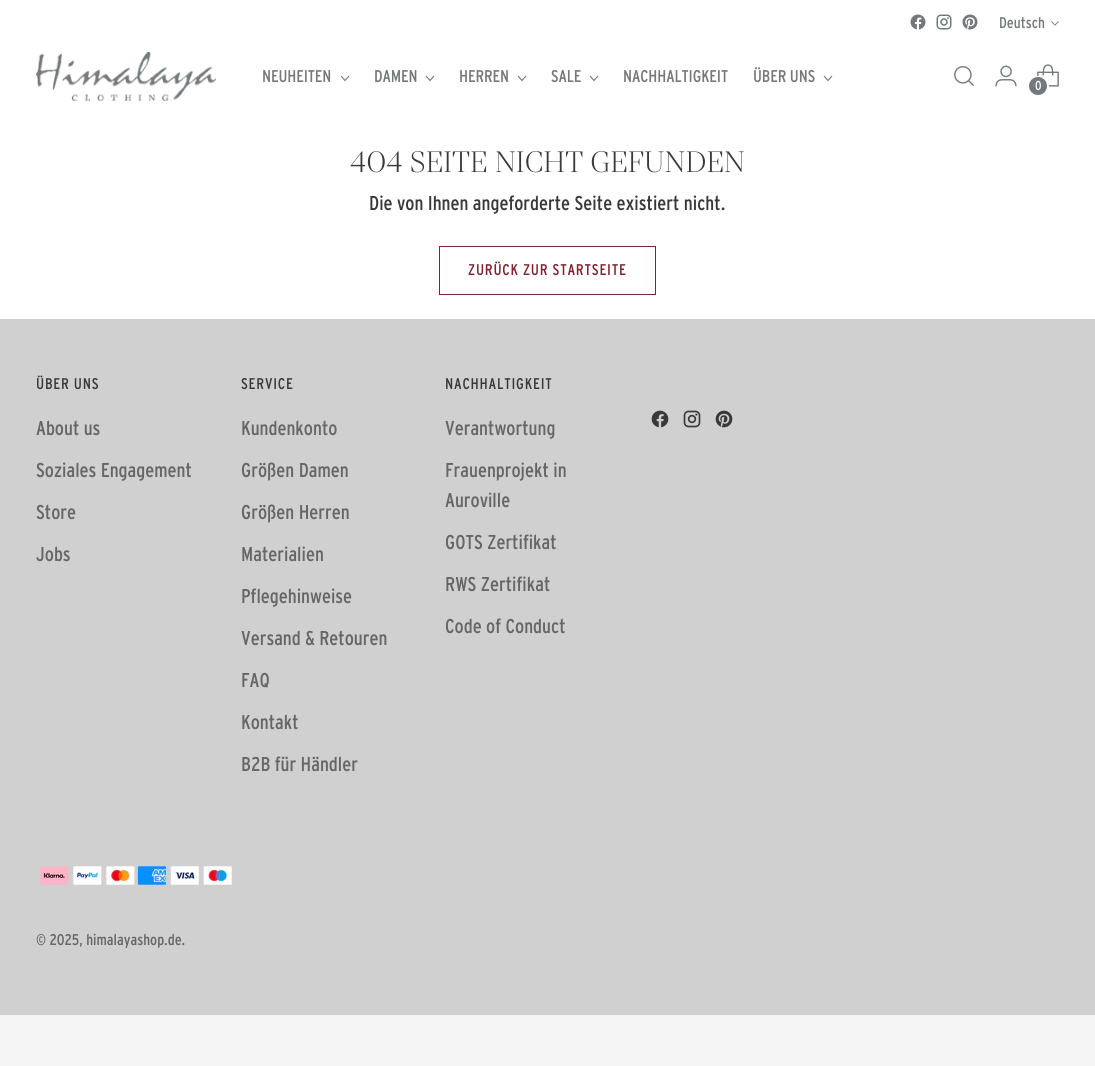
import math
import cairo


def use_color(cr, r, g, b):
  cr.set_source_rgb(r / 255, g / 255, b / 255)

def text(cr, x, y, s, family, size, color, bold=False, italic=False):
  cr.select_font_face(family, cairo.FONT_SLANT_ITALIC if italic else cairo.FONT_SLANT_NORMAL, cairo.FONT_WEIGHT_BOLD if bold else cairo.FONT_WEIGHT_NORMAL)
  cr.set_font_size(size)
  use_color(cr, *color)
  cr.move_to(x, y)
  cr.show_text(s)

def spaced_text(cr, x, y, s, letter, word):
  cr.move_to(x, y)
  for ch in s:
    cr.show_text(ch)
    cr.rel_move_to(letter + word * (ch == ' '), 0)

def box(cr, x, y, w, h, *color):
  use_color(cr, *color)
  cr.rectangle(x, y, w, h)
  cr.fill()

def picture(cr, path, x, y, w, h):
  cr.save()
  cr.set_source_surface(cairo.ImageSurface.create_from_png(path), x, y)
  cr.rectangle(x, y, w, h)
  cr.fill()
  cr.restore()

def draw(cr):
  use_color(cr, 255, 255, 255)
  cr.paint()
  picture(cr, "img_01.png", 910, 14, 16, 16)
  picture(cr, "img_02.png", 936, 14, 16, 16)
  picture(cr, "img_03.png", 962, 14, 16, 16)
  cr.new_path()
  cr.move_to(1051.5, 21.5)
  cr.line_to(1055, 25)
  cr.line_to(1058.5, 21.5)
  use_color(cr, 117, 121, 123)
  cr.set_line_width(0.9)
  cr.stroke()
  picture(cr, "img_04.png", 36, 52, 180, 49)
  cr.new_path()
  cr.move_to(341, 76)
  cr.line_to(345, 80.5)
  cr.line_to(349, 76)
  cr.set_line_width(1.1)
  cr.stroke()
  cr.new_path()
  cr.move_to(426, 76)
  cr.line_to(430, 80.5)
  cr.line_to(434, 76)
  cr.stroke()
  cr.new_path()
  cr.move_to(518, 76)
  cr.line_to(522, 80.5)
  cr.line_to(526, 76)
  cr.stroke()
  cr.new_path()
  cr.move_to(590, 76)
  cr.line_to(594, 80.5)
  cr.line_to(598, 76)
  cr.stroke()
  cr.new_path()
  cr.move_to(824, 76)
  cr.line_to(828, 80.5)
  cr.line_to(832, 76)
  cr.stroke()
  picture(cr, "img_05.png", 954, 66, 21, 21)
  picture(cr, "img_06.png", 995, 65, 22, 22)
  picture(cr, "img_07.png", 1037, 64, 22, 23)
  cr.arc(1038.5, 86.5, 9.5, 0, 2 * math.pi)
  use_color(cr, 255, 255, 255)
  cr.set_line_width(2)
  cr.stroke()
  use_color(cr, 117, 121, 123)
  cr.arc(1038, 86, 9, 0, 2 * math.pi)
  cr.fill()
  cr.rectangle(439.5, 246.5, 216, 48)
  use_color(cr, 126, 34, 49)
  cr.set_line_width(1)
  cr.stroke()
  box(cr, 0, 319, 1095, 696, 208, 208, 208)
  picture(cr, "img_08.png", 651, 410, 18, 18)
  picture(cr, "img_09.png", 683, 410, 18, 18)
  picture(cr, "img_10.png", 715, 410, 18, 18)
  picture(cr, "img_11.png", 40, 866, 192, 19)
  box(cr, 0, 1015, 1095, 51, 245, 245, 245)
  text(cr, 999, 28, "Deutsch", "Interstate", 15.5, (117, 121, 123))
  cr.set_font_size(17)
  spaced_text(cr, 262, 82, "NEUHEITEN", -0.1, 0)
  spaced_text(cr, 374, 82, "DAMEN", -0.1, 0)
  spaced_text(cr, 459, 82, "HERREN", -0.1, 0)
  spaced_text(cr, 551, 82, "SALE", -0.1, 0)
  spaced_text(cr, 623, 82, "NACHHALTIGKEIT", -0.1, 0)
  spaced_text(cr, 753, 82, "ÜBER UNS", -0.1, 0)
  text(cr, 1035, 90, "0", "Interstate", 13, (255, 255, 255))
  text(cr, 350, 172, "404 SEITE NICHT GEFUNDEN", "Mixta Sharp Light", 32.25, (57, 57, 57))
  text(cr, 369, 210, "Die von Ihnen angeforderte Seite existiert nicht.", "Interstate", 20, (57, 57, 57))
  cr.set_font_size(15.5)
  use_color(cr, 126, 34, 49)
  spaced_text(cr, 468, 275, "ZURÜCK ZUR STARTSEITE", 0.75, 0)
  use_color(cr, 57, 57, 57)
  spaced_text(cr, 36, 389, "ÜBER UNS", 0.75, 0)
  text(cr, 36, 435, "About us", "Interstate", 20, (102, 102, 102))
  text(cr, 36, 477, "Soziales Engagement", "Interstate", 20, (102, 102, 102))
  text(cr, 36, 519, "Store", "Interstate", 20, (102, 102, 102))
  text(cr, 36, 561, "Jobs", "Interstate", 20, (102, 102, 102))
  cr.set_font_size(15.5)
  use_color(cr, 57, 57, 57)
  spaced_text(cr, 241, 389, "SERVICE", 0.75, 0)
  text(cr, 241, 435, "Kundenkonto", "Interstate", 20, (102, 102, 102))
  text(cr, 241, 477, "Größen Damen", "Interstate", 20, (102, 102, 102))
  text(cr, 241, 519, "Größen Herren", "Interstate", 20, (102, 102, 102))
  text(cr, 241, 561, "Materialien", "Interstate", 20, (102, 102, 102))
  text(cr, 241, 603, "Pflegehinweise", "Interstate", 20, (102, 102, 102))
  text(cr, 241, 645, "Versand & Retouren", "Interstate", 20, (102, 102, 102))
  text(cr, 241, 687, "FAQ", "Interstate", 20, (102, 102, 102))
  text(cr, 241, 729, "Kontakt", "Interstate", 20, (102, 102, 102))
  text(cr, 241, 771, "B2B für Händler", "Interstate", 20, (102, 102, 102))
  cr.set_font_size(15.5)
  use_color(cr, 57, 57, 57)
  spaced_text(cr, 445, 389, "NACHHALTIGKEIT", 0.75, 0)
  text(cr, 445, 435, "Verantwortung", "Interstate", 20, (102, 102, 102))
  text(cr, 445, 477, "Frauenprojekt in", "Interstate", 20, (102, 102, 102))
  text(cr, 445, 507, "Auroville", "Interstate", 20, (102, 102, 102))
  text(cr, 445, 549, "GOTS Zertifikat", "Interstate", 20, (102, 102, 102))
  text(cr, 445, 591, "RWS Zertifikat", "Interstate", 20, (102, 102, 102))
  text(cr, 445, 633, "Code of Conduct", "Interstate", 20, (102, 102, 102))
  text(cr, 36, 945, "© 2025, himalayashop.de.", "Interstate", 15.5, (102, 102, 102))


surface = cairo.ImageSurface(cairo.FORMAT_RGB24, 1095, 1066)
cr = cairo.Context(surface)
options = cairo.FontOptions()
options.set_hint_metrics(cairo.HINT_METRICS_OFF)
options.set_hint_style(cairo.HINT_STYLE_NONE)
cr.set_font_options(options)
cr.set_miter_limit(4)
draw(cr)
surface.write_to_png("out.png")
